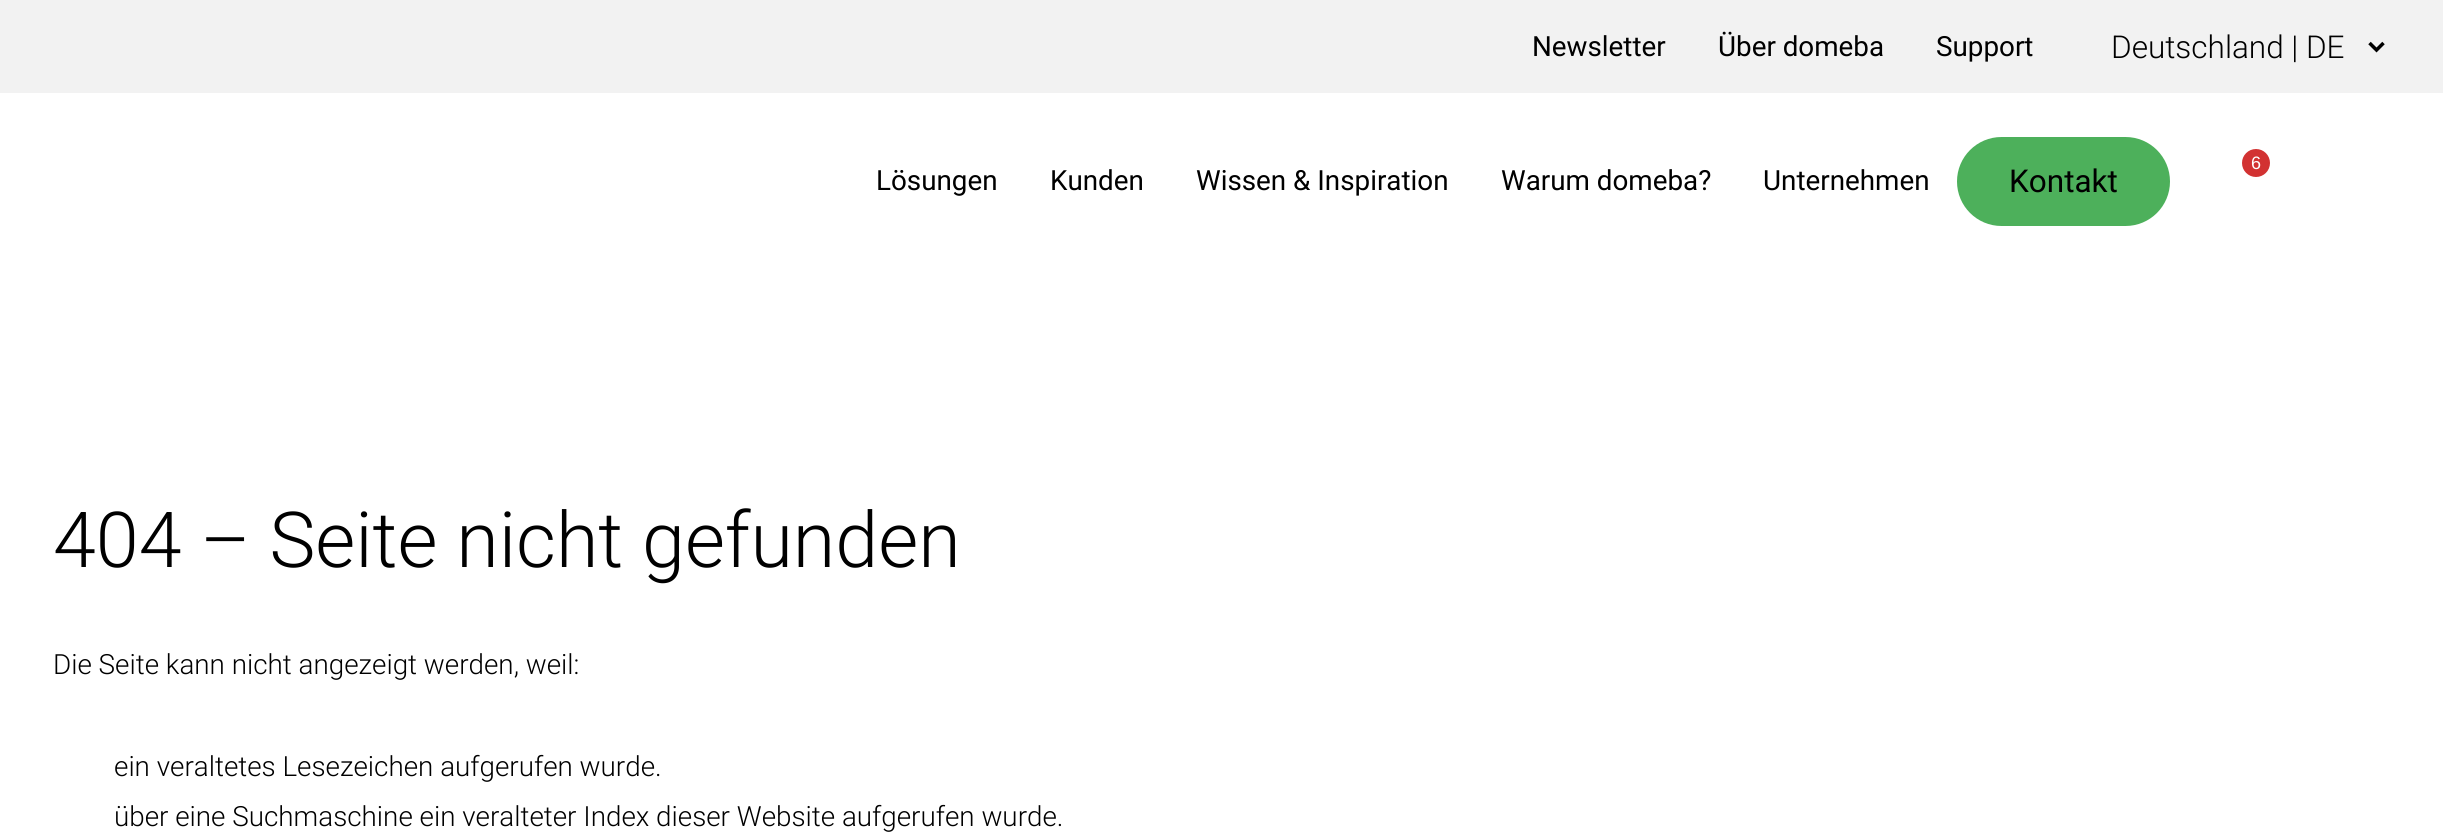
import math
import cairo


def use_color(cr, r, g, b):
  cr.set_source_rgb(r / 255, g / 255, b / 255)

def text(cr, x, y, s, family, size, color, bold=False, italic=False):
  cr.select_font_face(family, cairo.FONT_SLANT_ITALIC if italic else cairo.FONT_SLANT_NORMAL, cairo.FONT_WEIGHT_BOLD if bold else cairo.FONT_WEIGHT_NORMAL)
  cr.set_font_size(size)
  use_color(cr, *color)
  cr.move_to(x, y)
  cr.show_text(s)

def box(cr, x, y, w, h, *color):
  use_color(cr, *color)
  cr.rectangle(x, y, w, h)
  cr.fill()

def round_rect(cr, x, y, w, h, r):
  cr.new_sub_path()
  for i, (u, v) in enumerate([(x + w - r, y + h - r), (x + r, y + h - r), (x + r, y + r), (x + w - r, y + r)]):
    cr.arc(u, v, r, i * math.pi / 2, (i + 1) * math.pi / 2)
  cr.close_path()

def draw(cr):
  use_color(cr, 255, 255, 255)
  cr.paint()
  box(cr, 0, 0, 2443, 93, 242, 242, 242)
  cr.new_path()
  cr.move_to(2369.5, 43)
  cr.line_to(2376.5, 50)
  cr.line_to(2383.5, 43)
  use_color(cr, 0, 0, 0)
  cr.set_line_width(3.5)
  cr.stroke()
  use_color(cr, 210, 50, 50)
  cr.arc(2256, 163, 14, 0, 2 * math.pi)
  cr.fill()
  use_color(cr, 77, 176, 91)
  round_rect(cr, 1957, 137, 213, 89, 44.5)
  cr.fill()
  text(cr, 1532, 56, "Newsletter", "Roboto", 27.8, (0, 0, 0))
  text(cr, 1718, 56, "Über domeba", "Roboto", 27.8, (0, 0, 0))
  text(cr, 1936, 56, "Support", "Roboto", 27.8, (0, 0, 0))
  text(cr, 2111, 58, "Deutschland | DE", "Roboto Light", 31.5, (0, 0, 0))
  text(cr, 2251, 169, "6", "Liberation Sans", 18, (255, 255, 255))
  text(cr, 876, 190, "Lösungen", "Roboto", 27.8, (0, 0, 0))
  text(cr, 1050, 190, "Kunden", "Roboto", 27.8, (0, 0, 0))
  text(cr, 1196, 190, "Wissen & Inspiration", "Roboto", 27.8, (0, 0, 0))
  text(cr, 1501, 190, "Warum domeba?", "Roboto", 27.8, (0, 0, 0))
  text(cr, 1763, 190, "Unternehmen", "Roboto", 27.8, (0, 0, 0))
  text(cr, 2009, 192, "Kontakt", "Roboto", 31.5, (0, 0, 0))
  text(cr, 53, 567, "404 – Seite nicht gefunden", "Roboto Light", 77.25, (0, 0, 0))
  text(cr, 53, 674, "Die Seite kann nicht angezeigt werden, weil:", "Roboto Light", 27.8, (0, 0, 0))
  text(cr, 114, 776, "ein veraltetes Lesezeichen aufgerufen wurde.", "Roboto Light", 27.8, (0, 0, 0))
  text(cr, 114, 826, "über eine Suchmaschine ein veralteter Index dieser Website aufgerufen wurde.", "Roboto Light", 27.8, (0, 0, 0))


surface = cairo.ImageSurface(cairo.FORMAT_RGB24, 2443, 833)
cr = cairo.Context(surface)
options = cairo.FontOptions()
options.set_hint_metrics(cairo.HINT_METRICS_OFF)
options.set_hint_style(cairo.HINT_STYLE_NONE)
cr.set_font_options(options)
cr.set_miter_limit(4)
draw(cr)
surface.write_to_png("out.png")
